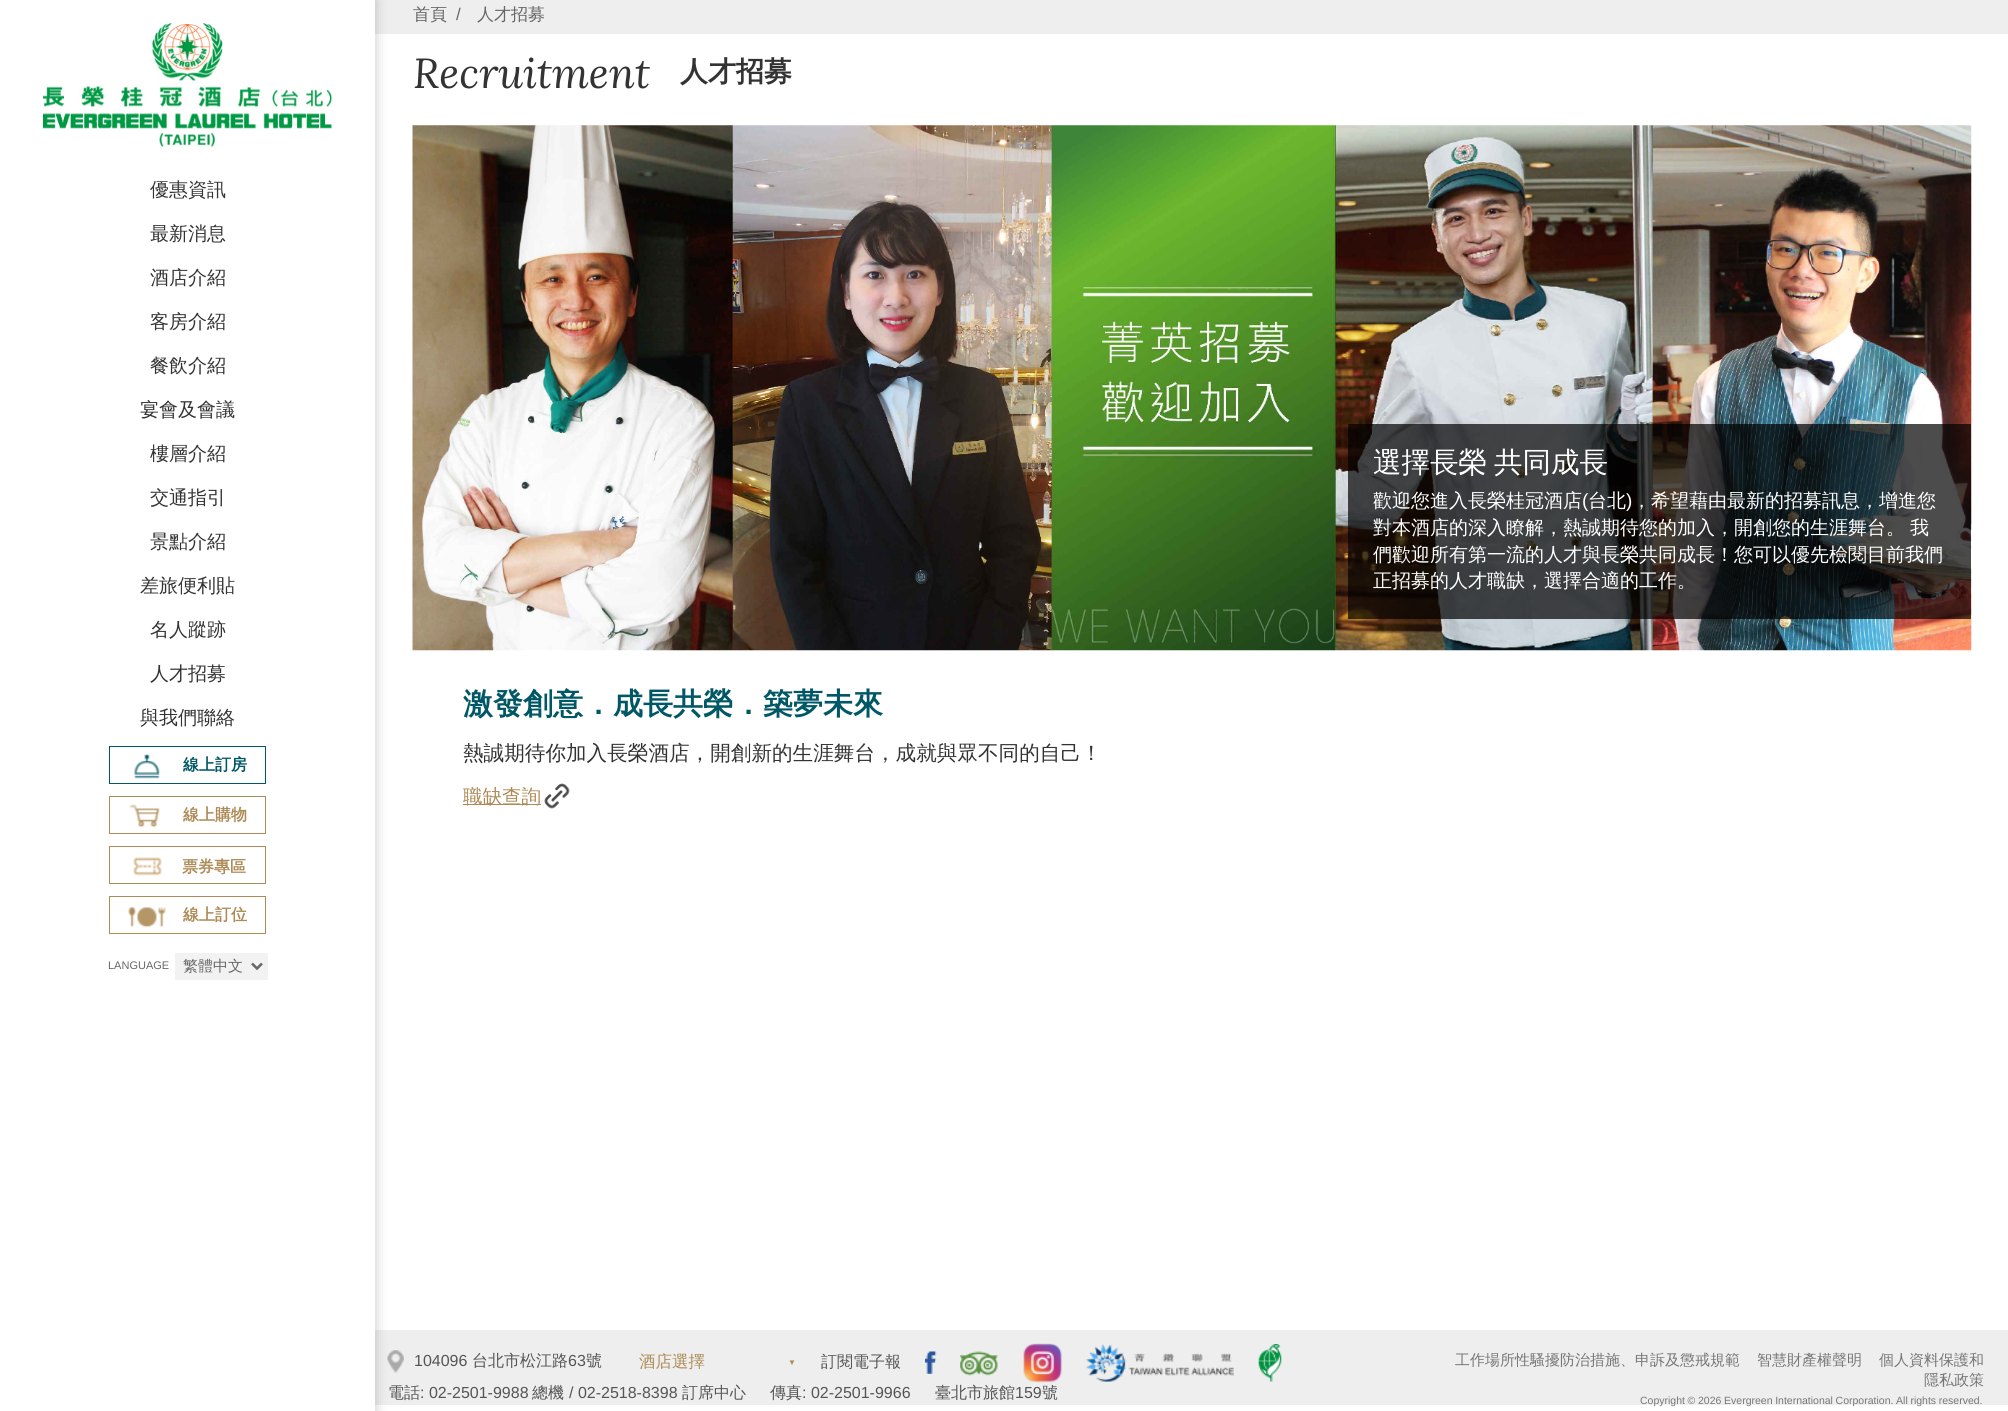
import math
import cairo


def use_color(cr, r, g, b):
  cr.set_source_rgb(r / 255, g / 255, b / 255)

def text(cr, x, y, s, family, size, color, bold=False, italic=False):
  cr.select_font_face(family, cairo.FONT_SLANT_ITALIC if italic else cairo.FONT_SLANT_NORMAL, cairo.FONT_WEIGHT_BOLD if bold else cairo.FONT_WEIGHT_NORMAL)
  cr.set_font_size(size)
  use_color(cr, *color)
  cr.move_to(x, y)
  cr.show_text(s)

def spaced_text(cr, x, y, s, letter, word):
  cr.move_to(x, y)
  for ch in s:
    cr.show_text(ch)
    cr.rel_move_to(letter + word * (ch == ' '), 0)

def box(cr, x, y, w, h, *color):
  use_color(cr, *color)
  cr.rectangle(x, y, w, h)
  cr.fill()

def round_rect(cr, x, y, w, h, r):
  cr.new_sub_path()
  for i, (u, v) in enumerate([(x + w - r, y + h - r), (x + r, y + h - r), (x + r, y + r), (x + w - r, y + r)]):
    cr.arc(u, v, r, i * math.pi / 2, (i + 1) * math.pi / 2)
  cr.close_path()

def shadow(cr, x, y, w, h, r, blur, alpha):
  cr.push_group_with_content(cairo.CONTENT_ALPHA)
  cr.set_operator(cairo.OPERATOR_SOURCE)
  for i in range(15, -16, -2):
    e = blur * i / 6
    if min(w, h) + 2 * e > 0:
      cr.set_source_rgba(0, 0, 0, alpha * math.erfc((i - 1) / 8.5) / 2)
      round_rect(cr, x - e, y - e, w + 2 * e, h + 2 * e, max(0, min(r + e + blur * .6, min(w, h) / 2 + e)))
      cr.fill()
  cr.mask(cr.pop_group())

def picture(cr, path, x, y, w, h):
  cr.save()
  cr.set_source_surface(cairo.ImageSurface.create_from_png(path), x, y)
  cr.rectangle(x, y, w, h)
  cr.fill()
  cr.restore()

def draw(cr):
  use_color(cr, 255, 255, 255)
  cr.paint()
  box(cr, 375, 0, 1633, 34, 238, 238, 238)
  box(cr, 375, 1330, 1633, 75, 238, 238, 238)
  picture(cr, "img_08.png", 387, 1350, 17, 23)
  use_color(cr, 0, 0, 0)
  shadow(cr, 1, 1, 375, 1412, 0, 6, 0.2)
  box(cr, 0, 0, 375, 1411, 255, 255, 255)
  picture(cr, "img_01.png", 43, 23, 290, 124)
  cr.rectangle(109.5, 746.5, 156, 37)
  use_color(cr, 0, 87, 101)
  cr.set_line_width(1)
  cr.stroke()
  picture(cr, "img_02.png", 133, 754, 27, 25)
  cr.rectangle(109.5, 796.5, 156, 37)
  use_color(cr, 173, 139, 87)
  cr.stroke()
  picture(cr, "img_03.png", 129, 804, 31, 24)
  cr.rectangle(109.5, 846.5, 156, 37)
  cr.stroke()
  picture(cr, "img_04.png", 133, 857, 29, 19)
  cr.rectangle(109.5, 896.5, 156, 37)
  cr.stroke()
  picture(cr, "img_05.png", 128, 907, 38, 21)
  box(cr, 175, 953, 93, 27, 242, 242, 242)
  cr.new_path()
  cr.move_to(252, 963.5)
  cr.line_to(257, 968.5)
  cr.line_to(262, 963.5)
  use_color(cr, 102, 102, 102)
  cr.set_line_width(2.5)
  cr.stroke()
  picture(cr, "img_06.png", 412, 125, 1560, 526)
  cr.set_source_rgba(0, 0, 0, 0.7)
  cr.rectangle(1348, 424, 623, 195)
  cr.fill()
  box(cr, 463, 804, 78, 1, 173, 139, 87)
  picture(cr, "img_07.png", 544, 783, 26, 26)
  picture(cr, "img_09.png", 925, 1351, 12, 23)
  picture(cr, "img_10.png", 960, 1351, 38, 25)
  picture(cr, "img_11.png", 1023, 1343, 39, 40)
  picture(cr, "img_12.png", 1086, 1344, 148, 38)
  picture(cr, "img_13.png", 1258, 1344, 24, 38)
  text(cr, 150, 196, "優惠資訊", "WenQuanYi Zen Hei Medium", 19, (51, 51, 51))
  text(cr, 150, 240, "最新消息", "WenQuanYi Zen Hei Medium", 19, (51, 51, 51))
  text(cr, 150, 284, "酒店介紹", "WenQuanYi Zen Hei Medium", 19, (51, 51, 51))
  text(cr, 150, 328, "客房介紹", "WenQuanYi Zen Hei Medium", 19, (51, 51, 51))
  text(cr, 150, 372, "餐飲介紹", "WenQuanYi Zen Hei Medium", 19, (51, 51, 51))
  text(cr, 140, 416, "宴會及會議", "WenQuanYi Zen Hei Medium", 19, (51, 51, 51))
  text(cr, 150, 460, "樓層介紹", "WenQuanYi Zen Hei Medium", 19, (51, 51, 51))
  text(cr, 150, 504, "交通指引", "WenQuanYi Zen Hei Medium", 19, (51, 51, 51))
  text(cr, 150, 548, "景點介紹", "WenQuanYi Zen Hei Medium", 19, (51, 51, 51))
  text(cr, 140, 592, "差旅便利貼", "WenQuanYi Zen Hei Medium", 19, (51, 51, 51))
  text(cr, 150, 636, "名人蹤跡", "WenQuanYi Zen Hei Medium", 19, (51, 51, 51))
  text(cr, 150, 680, "人才招募", "WenQuanYi Zen Hei Medium", 19, (51, 51, 51))
  text(cr, 140, 724, "與我們聯絡", "WenQuanYi Zen Hei Medium", 19, (51, 51, 51))
  text(cr, 183, 770, "線上訂房", "WenQuanYi Zen Hei", 16, (0, 87, 101), bold=True)
  text(cr, 183, 820, "線上購物", "WenQuanYi Zen Hei", 16, (173, 139, 87), bold=True)
  text(cr, 182, 872, "票券專區", "WenQuanYi Zen Hei", 16, (173, 139, 87), bold=True)
  text(cr, 183, 920, "線上訂位", "WenQuanYi Zen Hei", 16, (173, 139, 87), bold=True)
  text(cr, 108, 969, "LANGUAGE", "Liberation Sans", 11, (102, 102, 102))
  text(cr, 183, 971, "繁體中文", "WenQuanYi Zen Hei Medium", 15, (102, 102, 102))
  text(cr, 413, 20, "首頁", "WenQuanYi Zen Hei Medium", 17, (102, 102, 102))
  text(cr, 456, 20, "/", "Liberation Sans", 17, (102, 102, 102))
  text(cr, 477, 20, "人才招募", "WenQuanYi Zen Hei Medium", 17, (102, 102, 102))
  text(cr, 413, 88, "Recruitment", "Lora", 42, (51, 51, 51), italic=True)
  text(cr, 680, 81, "人才招募", "WenQuanYi Zen Hei", 28, (51, 51, 51), bold=True)
  text(cr, 1373, 472, "選擇長榮", "WenQuanYi Zen Hei Medium", 28.5, (255, 255, 255))
  text(cr, 1494, 472, "共同成長", "WenQuanYi Zen Hei Medium", 28.5, (255, 255, 255))
  text(cr, 1373, 507, "歡迎您進入長榮桂冠酒店", "WenQuanYi Zen Hei Medium", 19, (255, 255, 255))
  text(cr, 1582, 507, "(", "Liberation Sans", 19, (255, 255, 255))
  text(cr, 1588, 507, "台北", "WenQuanYi Zen Hei Medium", 19, (255, 255, 255))
  text(cr, 1626, 507, ")", "Liberation Sans", 19, (255, 255, 255))
  text(cr, 1632, 507, "，希望藉由最新的招募訊息，增進您", "WenQuanYi Zen Hei Medium", 19, (255, 255, 255))
  text(cr, 1373, 534, "對本酒店的深入瞭解，熱誠期待您的加入，開創您的生涯舞台。", "WenQuanYi Zen Hei Medium", 19, (255, 255, 255))
  text(cr, 1910, 534, "我", "WenQuanYi Zen Hei Medium", 19, (255, 255, 255))
  text(cr, 1373, 561, "們歡迎所有第一流的人才與長榮共同成長！您可以優先檢閱目前我們", "WenQuanYi Zen Hei Medium", 19, (255, 255, 255))
  text(cr, 1373, 587, "正招募的人才職缺，選擇合適的工作。", "WenQuanYi Zen Hei Medium", 19, (255, 255, 255))
  text(cr, 463, 714, "激發創意．成長共榮．築夢未來", "WenQuanYi Zen Hei", 30, (0, 87, 101), bold=True)
  text(cr, 463, 760, "熱誠期待你加入長榮酒店，開創新的生涯舞台，成就與眾不同的自己！", "WenQuanYi Zen Hei Medium", 20.6, (51, 51, 51))
  text(cr, 463, 803, "職缺查詢", "WenQuanYi Zen Hei Medium", 19.5, (173, 139, 87))
  text(cr, 414, 1366, "104096", "Liberation Sans", 16, (85, 85, 85))
  text(cr, 472, 1366, "台北市松江路", "WenQuanYi Zen Hei Medium", 16, (85, 85, 85))
  text(cr, 568, 1366, "63", "Liberation Sans", 16, (85, 85, 85))
  text(cr, 586, 1366, "號", "WenQuanYi Zen Hei Medium", 16, (85, 85, 85))
  text(cr, 639, 1367, "酒店選擇", "WenQuanYi Zen Hei Medium", 16.5, (173, 139, 87))
  text(cr, 788, 1365, "▼", "Liberation Sans", 8, (173, 139, 87))
  text(cr, 821, 1367, "訂閱電子報", "WenQuanYi Zen Hei Medium", 16, (85, 85, 85))
  text(cr, 388, 1398, "電話", "WenQuanYi Zen Hei Medium", 16, (85, 85, 85))
  text(cr, 420, 1398, ": 02-2501-9988", "Liberation Sans", 16, (85, 85, 85))
  text(cr, 532, 1398, "總機", "WenQuanYi Zen Hei Medium", 16, (85, 85, 85))
  text(cr, 569, 1398, "/ 02-2518-8398", "Liberation Sans", 16, (85, 85, 85))
  text(cr, 682, 1398, "訂席中心", "WenQuanYi Zen Hei Medium", 16, (85, 85, 85))
  text(cr, 770, 1398, "傳真", "WenQuanYi Zen Hei Medium", 16, (85, 85, 85))
  text(cr, 802, 1398, ": 02-2501-9966", "Liberation Sans", 16, (85, 85, 85))
  text(cr, 935, 1398, "臺北市旅館", "WenQuanYi Zen Hei Medium", 16, (85, 85, 85))
  text(cr, 1015, 1398, "159", "Liberation Sans", 16, (85, 85, 85))
  text(cr, 1042, 1398, "號", "WenQuanYi Zen Hei Medium", 16, (85, 85, 85))
  text(cr, 1455, 1365, "工作場所性騷擾防治措施、申訴及懲戒規範", "WenQuanYi Zen Hei Medium", 15, (119, 119, 119))
  text(cr, 1757, 1365, "智慧財產權聲明", "WenQuanYi Zen Hei Medium", 15, (119, 119, 119))
  text(cr, 1879, 1365, "個人資料保護和", "WenQuanYi Zen Hei Medium", 15, (119, 119, 119))
  text(cr, 1924, 1385, "隱私政策", "WenQuanYi Zen Hei Medium", 15, (119, 119, 119))
  cr.select_font_face("Liberation Sans")
  cr.set_font_size(10.5)
  spaced_text(cr, 1640, 1404, "Copyright © 2026 Evergreen International Corporation. All rights reserved.", 0, -0.25)


surface = cairo.ImageSurface(cairo.FORMAT_RGB24, 2008, 1411)
cr = cairo.Context(surface)
options = cairo.FontOptions()
options.set_hint_metrics(cairo.HINT_METRICS_OFF)
options.set_hint_style(cairo.HINT_STYLE_NONE)
cr.set_font_options(options)
cr.set_miter_limit(4)
draw(cr)
surface.write_to_png("out.png")
